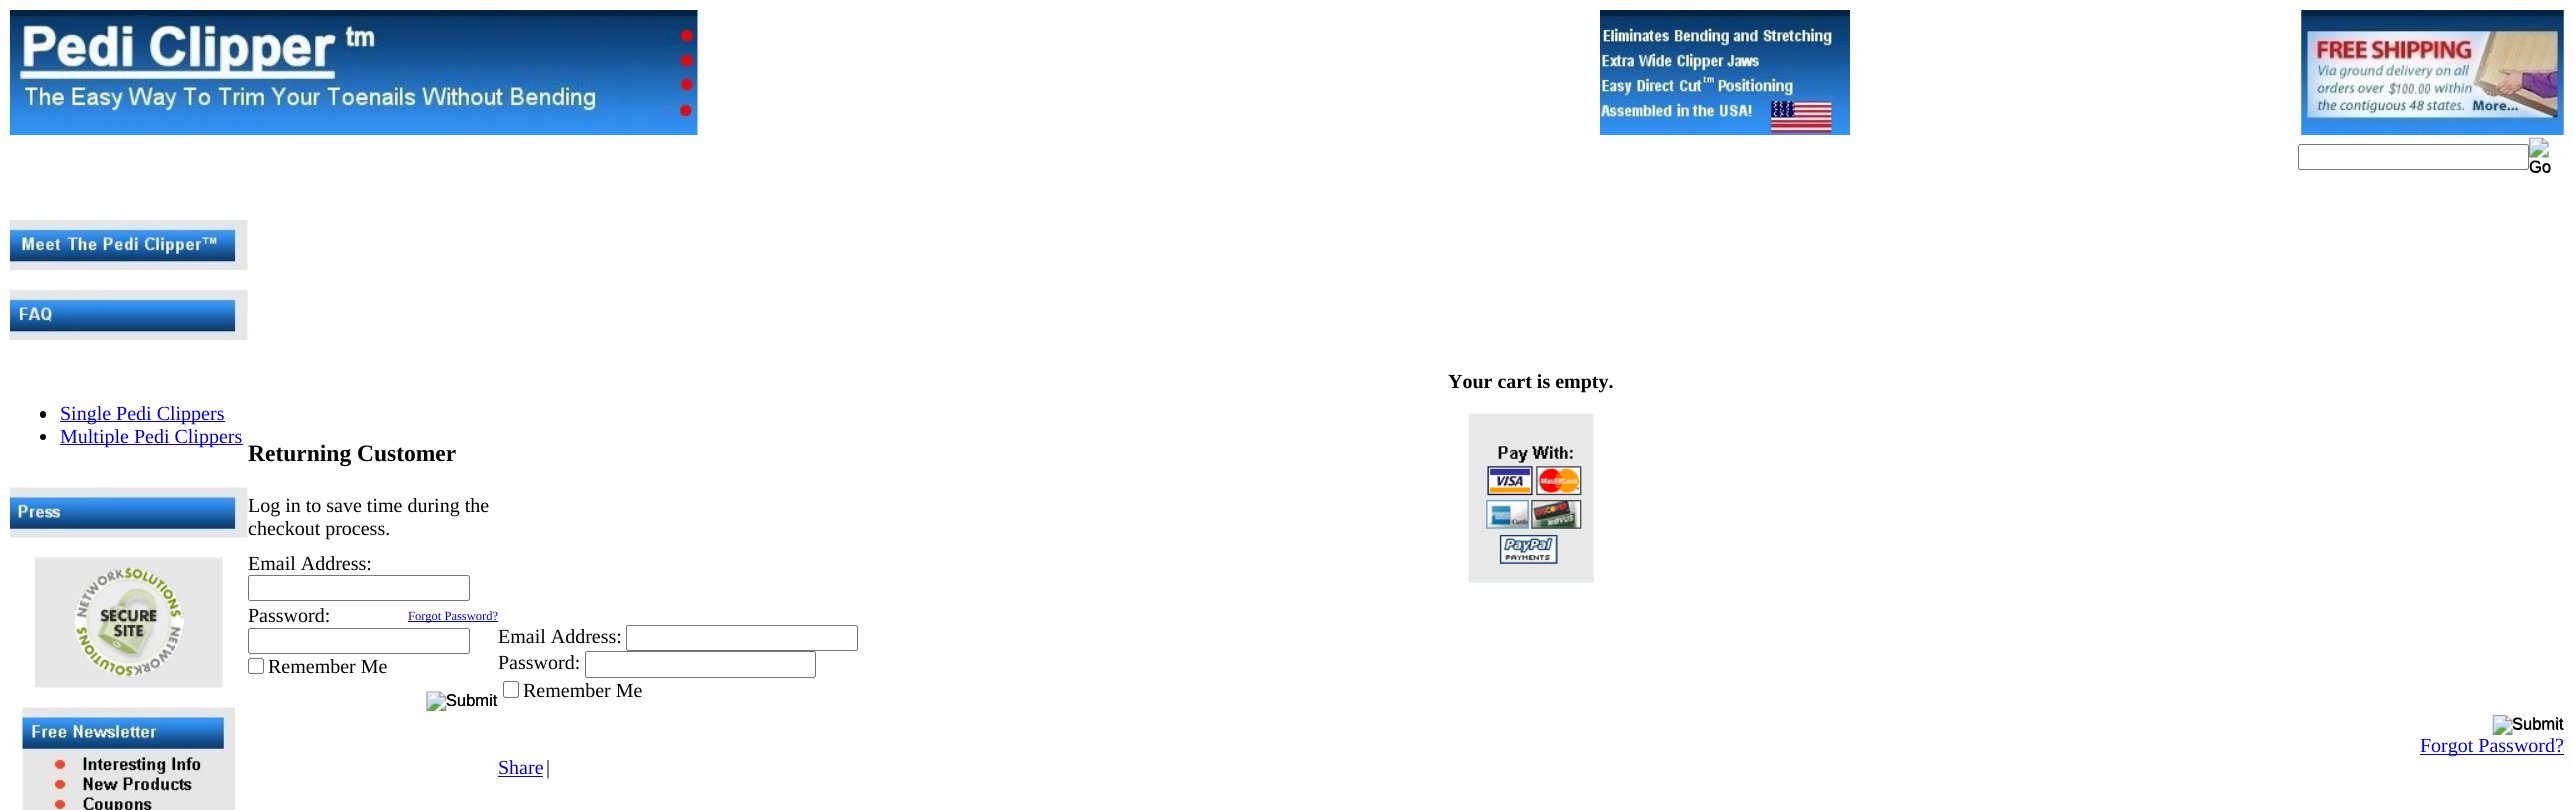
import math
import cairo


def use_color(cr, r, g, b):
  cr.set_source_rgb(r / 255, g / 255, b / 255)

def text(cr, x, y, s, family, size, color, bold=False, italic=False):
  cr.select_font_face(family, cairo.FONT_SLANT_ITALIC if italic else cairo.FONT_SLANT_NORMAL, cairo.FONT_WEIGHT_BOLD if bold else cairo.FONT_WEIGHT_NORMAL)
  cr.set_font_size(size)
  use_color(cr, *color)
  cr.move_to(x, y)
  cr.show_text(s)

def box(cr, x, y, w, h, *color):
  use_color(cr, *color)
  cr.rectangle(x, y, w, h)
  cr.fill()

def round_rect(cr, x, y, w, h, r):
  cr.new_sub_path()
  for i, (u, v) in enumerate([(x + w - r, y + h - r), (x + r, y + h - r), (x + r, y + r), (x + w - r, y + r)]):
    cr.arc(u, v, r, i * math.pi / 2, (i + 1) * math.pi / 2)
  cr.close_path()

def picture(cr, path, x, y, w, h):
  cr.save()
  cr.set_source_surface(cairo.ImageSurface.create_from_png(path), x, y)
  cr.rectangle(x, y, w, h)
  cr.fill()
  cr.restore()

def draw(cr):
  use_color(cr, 255, 255, 255)
  cr.paint()
  picture(cr, "img_01.png", 10, 10, 688, 125)
  picture(cr, "img_02.png", 1600, 10, 250, 125)
  picture(cr, "img_03.png", 2301, 10, 263, 125)
  round_rect(cr, 2298.5, 144.5, 230, 25, 2)
  use_color(cr, 118, 118, 118)
  cr.set_line_width(1)
  cr.stroke()
  picture(cr, "img_04.png", 2528, 137, 23, 36)
  picture(cr, "img_05.png", 10, 220, 238, 50)
  picture(cr, "img_06.png", 10, 290, 238, 50)
  use_color(cr, 0, 0, 0)
  round_rect(cr, 40, 411, 6, 7, 3)
  cr.fill()
  box(cr, 60, 421, 165, 1, 0, 0, 238)
  use_color(cr, 0, 0, 0)
  cr.arc(43, 437, 3, 0, 2 * math.pi)
  cr.fill()
  box(cr, 60, 444, 183, 1, 0, 0, 238)
  picture(cr, "img_07.png", 10, 487, 238, 51)
  picture(cr, "img_08.png", 35, 557, 188, 131)
  picture(cr, "img_09.png", 22, 707, 213, 103)
  picture(cr, "img_10.png", 1468, 413, 126, 170)
  round_rect(cr, 626.5, 625.5, 231, 25, 2)
  use_color(cr, 118, 118, 118)
  cr.stroke()
  round_rect(cr, 585.5, 651.5, 230, 26, 2)
  cr.stroke()
  round_rect(cr, 503.5, 681.5, 15, 16, 2)
  cr.stroke()
  picture(cr, "img_11.png", 2492, 715, 72, 20)
  box(cr, 2420, 754, 144, 1, 0, 0, 238)
  box(cr, 498, 776, 45, 1, 0, 0, 238)
  round_rect(cr, 248.5, 575.5, 221, 25, 2)
  use_color(cr, 118, 118, 118)
  cr.stroke()
  box(cr, 408, 621, 90, 1, 0, 0, 238)
  round_rect(cr, 248.5, 628.5, 221, 25, 2)
  use_color(cr, 118, 118, 118)
  cr.stroke()
  round_rect(cr, 248.5, 658.5, 15, 15, 2)
  cr.stroke()
  picture(cr, "img_12.png", 426, 691, 72, 21)
  text(cr, 2529, 172, "Go", "Liberation Sans", 16.5, (0, 0, 0))
  text(cr, 60, 420, "Single Pedi Clippers", "Liberation Serif", 20, (0, 0, 238))
  text(cr, 60, 443, "Multiple Pedi Clippers", "Liberation Serif", 20, (0, 0, 238))
  text(cr, 1448, 388, "Your cart is empty.", "Liberation Serif", 20, (0, 0, 0), bold=True)
  text(cr, 498, 643, "Email Address:", "Liberation Serif", 20, (0, 0, 0))
  text(cr, 498, 669, "Password:", "Liberation Serif", 20, (0, 0, 0))
  text(cr, 523, 697, "Remember Me", "Liberation Serif", 20, (0, 0, 0))
  text(cr, 2512, 729, "Submit", "Liberation Sans", 16.5, (0, 0, 0))
  text(cr, 2420, 752, "Forgot Password?", "Liberation Serif", 20, (0, 0, 238))
  text(cr, 498, 774, "Share", "Liberation Serif", 20, (0, 0, 238))
  text(cr, 546, 774, "|", "Liberation Serif", 20, (0, 0, 0))
  text(cr, 248, 461, "Returning Customer", "Liberation Serif", 23.5, (0, 0, 0), bold=True)
  text(cr, 248, 512, "Log in to save time during the", "Liberation Serif", 20, (0, 0, 0))
  text(cr, 248, 535, "checkout process.", "Liberation Serif", 20, (0, 0, 0))
  text(cr, 248, 570, "Email Address:", "Liberation Serif", 20, (0, 0, 0))
  text(cr, 248, 622, "Password:", "Liberation Serif", 20, (0, 0, 0))
  text(cr, 408, 620, "Forgot Password?", "Liberation Serif", 12.5, (0, 0, 238))
  text(cr, 268, 673, "Remember Me", "Liberation Serif", 20, (0, 0, 0))
  text(cr, 446, 706, "Submit", "Liberation Sans", 16.5, (0, 0, 0))


surface = cairo.ImageSurface(cairo.FORMAT_RGB24, 2573, 810)
cr = cairo.Context(surface)
options = cairo.FontOptions()
options.set_hint_metrics(cairo.HINT_METRICS_OFF)
options.set_hint_style(cairo.HINT_STYLE_NONE)
cr.set_font_options(options)
cr.set_miter_limit(4)
draw(cr)
surface.write_to_png("out.png")
